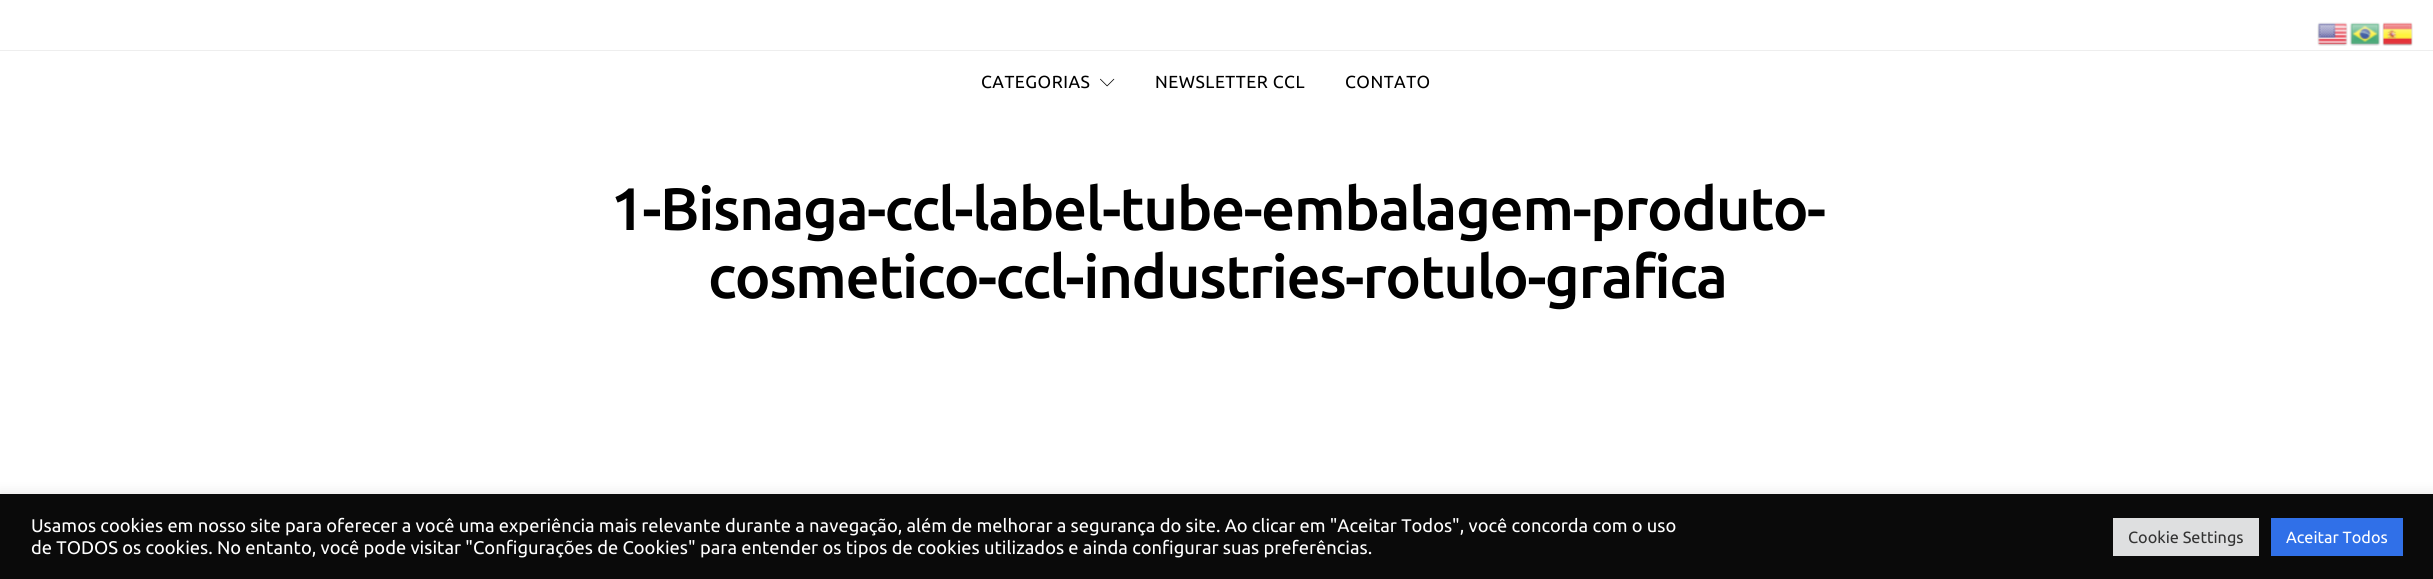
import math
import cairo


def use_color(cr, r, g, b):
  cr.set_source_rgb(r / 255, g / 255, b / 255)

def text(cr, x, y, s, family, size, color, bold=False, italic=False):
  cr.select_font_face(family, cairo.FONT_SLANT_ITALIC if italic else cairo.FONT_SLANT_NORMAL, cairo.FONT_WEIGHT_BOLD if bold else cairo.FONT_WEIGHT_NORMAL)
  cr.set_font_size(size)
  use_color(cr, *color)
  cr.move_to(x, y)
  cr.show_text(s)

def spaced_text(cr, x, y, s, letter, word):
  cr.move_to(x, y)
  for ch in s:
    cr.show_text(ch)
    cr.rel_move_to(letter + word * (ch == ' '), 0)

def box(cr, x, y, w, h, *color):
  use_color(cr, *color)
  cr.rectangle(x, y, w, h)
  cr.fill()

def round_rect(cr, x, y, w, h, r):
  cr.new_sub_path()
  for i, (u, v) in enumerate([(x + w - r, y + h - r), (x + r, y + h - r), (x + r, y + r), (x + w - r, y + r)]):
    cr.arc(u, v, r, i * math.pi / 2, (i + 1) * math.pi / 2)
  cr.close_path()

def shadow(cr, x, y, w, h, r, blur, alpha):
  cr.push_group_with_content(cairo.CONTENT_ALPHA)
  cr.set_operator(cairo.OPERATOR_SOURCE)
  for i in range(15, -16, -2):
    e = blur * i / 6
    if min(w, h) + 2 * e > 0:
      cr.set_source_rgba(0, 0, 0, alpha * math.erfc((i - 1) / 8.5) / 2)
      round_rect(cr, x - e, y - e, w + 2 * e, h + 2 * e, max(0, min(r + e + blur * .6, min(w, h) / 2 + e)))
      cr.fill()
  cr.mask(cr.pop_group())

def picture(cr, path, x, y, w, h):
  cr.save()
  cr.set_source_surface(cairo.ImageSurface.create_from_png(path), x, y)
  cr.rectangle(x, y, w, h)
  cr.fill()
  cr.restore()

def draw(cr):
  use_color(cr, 255, 255, 255)
  cr.paint()
  picture(cr, "img_01.png", 2317, 22, 31, 24)
  picture(cr, "img_02.png", 2349, 22, 32, 24)
  picture(cr, "img_03.png", 2382, 22, 31, 24)
  box(cr, 0, 50, 2433, 1, 238, 238, 238)
  picture(cr, "img_04.png", 1100, 78, 15, 9)
  use_color(cr, 172, 171, 171)
  shadow(cr, 0, 493, 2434, 86, 0, 6, 0.3)
  box(cr, 0, 494, 2433, 85, 10, 10, 10)
  box(cr, 2113, 518, 146, 38, 222, 223, 224)
  box(cr, 2271, 518, 132, 38, 48, 112, 232)
  cr.select_font_face("Ubuntu")
  cr.set_font_size(17.5)
  use_color(cr, 0, 0, 0)
  spaced_text(cr, 981, 88, "CATEGORIAS", 0.5, 0)
  spaced_text(cr, 1155, 88, "NEWSLETTER CCL", 0.5, 0)
  spaced_text(cr, 1345, 88, "CONTATO", 0.5, 0)
  cr.select_font_face("Ubuntu Medium")
  cr.set_font_size(60)
  spaced_text(cr, 610, 230, "1-Bisnaga-ccl-label-tube-embalagem-produto-", -1.5, 0)
  spaced_text(cr, 708, 298, "cosmetico-ccl-industries-rotulo-grafica", -1.5, 0)
  text(cr, 31, 532, "Usamos cookies em nosso site para oferecer a você uma experiência mais relevante durante a navegação, além de melhorar a segurança do site. Ao clicar em \"Aceitar Todos\", você concorda com o uso", "Ubuntu", 18.33, (255, 255, 255))
  text(cr, 31, 554, "de TODOS os cookies. No entanto, você pode visitar \"Configurações de Cookies\" para entender os tipos de cookies utilizados e ainda configurar suas preferências.", "Ubuntu", 18.33, (255, 255, 255))
  text(cr, 2128, 543, "Cookie Settings", "Ubuntu", 16.25, (51, 51, 51))
  text(cr, 2286, 543, "Aceitar Todos", "Ubuntu", 16.25, (255, 255, 255))


surface = cairo.ImageSurface(cairo.FORMAT_RGB24, 2433, 579)
cr = cairo.Context(surface)
options = cairo.FontOptions()
options.set_hint_metrics(cairo.HINT_METRICS_OFF)
options.set_hint_style(cairo.HINT_STYLE_NONE)
cr.set_font_options(options)
cr.set_miter_limit(4)
draw(cr)
surface.write_to_png("out.png")
